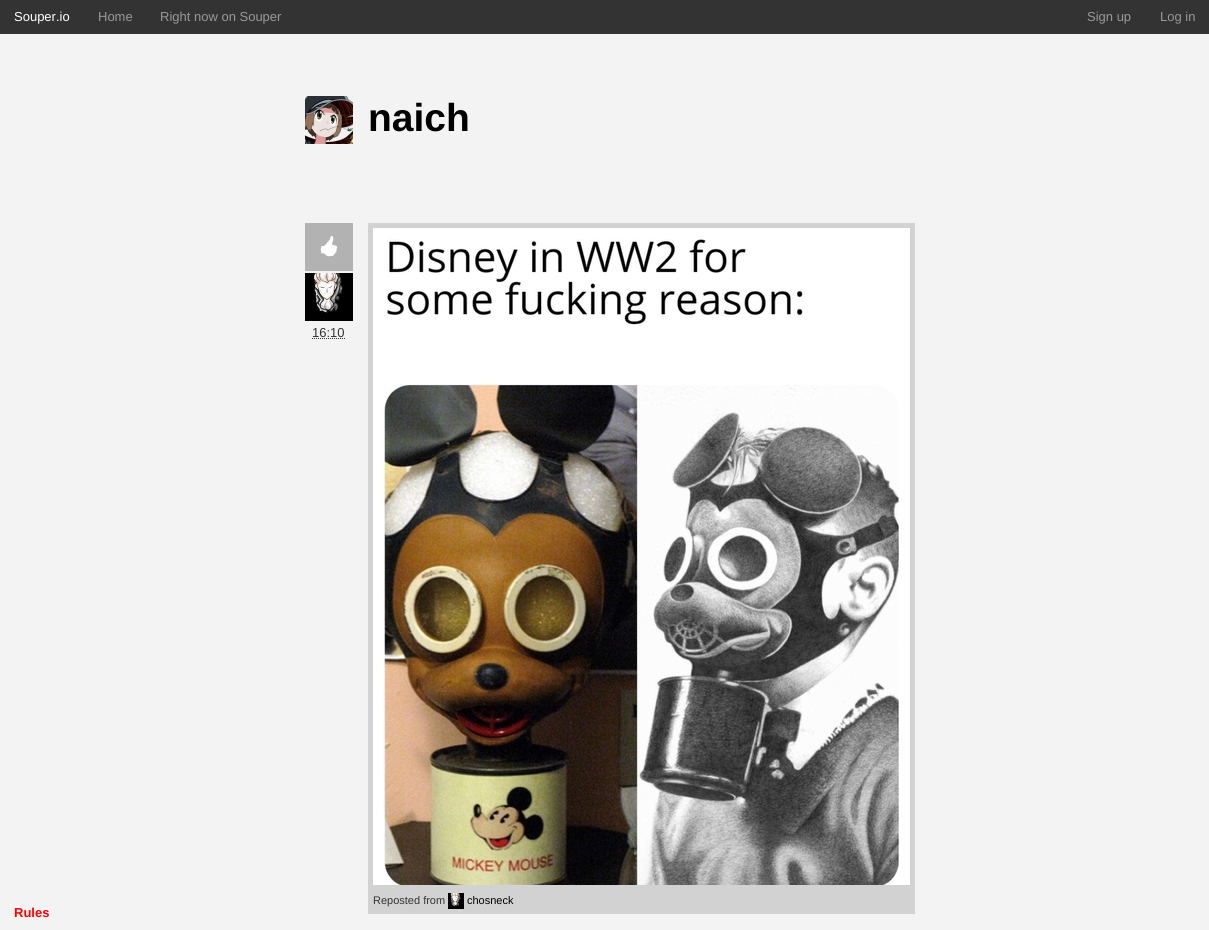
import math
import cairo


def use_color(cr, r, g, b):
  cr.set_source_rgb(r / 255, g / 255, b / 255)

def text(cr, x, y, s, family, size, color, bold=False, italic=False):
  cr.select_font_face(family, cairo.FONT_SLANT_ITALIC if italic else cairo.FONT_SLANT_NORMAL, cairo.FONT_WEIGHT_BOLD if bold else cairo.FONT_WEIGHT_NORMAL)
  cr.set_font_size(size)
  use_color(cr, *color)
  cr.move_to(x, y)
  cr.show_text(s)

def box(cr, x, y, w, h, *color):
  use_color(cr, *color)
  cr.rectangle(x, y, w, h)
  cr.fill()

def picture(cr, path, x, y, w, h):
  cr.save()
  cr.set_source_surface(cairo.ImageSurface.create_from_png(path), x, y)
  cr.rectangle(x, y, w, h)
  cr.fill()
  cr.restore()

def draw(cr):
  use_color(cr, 243, 243, 243)
  cr.paint()
  box(cr, 0, 0, 1209, 34, 51, 51, 51)
  picture(cr, "img_01.png", 305, 96, 48, 48)
  box(cr, 305, 223, 48, 48, 178, 178, 178)
  picture(cr, "img_02.png", 320, 235, 18, 22)
  picture(cr, "img_03.png", 305, 273, 48, 48)
  cr.new_path()
  cr.move_to(312, 338.5)
  cr.line_to(345, 338.5)
  use_color(cr, 51, 51, 51)
  cr.set_line_width(1)
  cr.set_dash([1, 1])
  cr.stroke()
  box(cr, 368, 223, 547, 691, 210, 210, 210)
  picture(cr, "img_04.png", 373, 228, 537, 657)
  picture(cr, "img_05.png", 448, 893, 16, 16)
  text(cr, 14, 21, "Souper.io", "Liberation Sans", 13, (255, 255, 255))
  text(cr, 98, 21, "Home", "Liberation Sans", 13, (153, 153, 153))
  text(cr, 160, 21, "Right now on Souper", "Liberation Sans", 13, (153, 153, 153))
  text(cr, 1087, 21, "Sign up", "Liberation Sans", 13, (153, 153, 153))
  text(cr, 1160, 21, "Log in", "Liberation Sans", 13, (153, 153, 153))
  text(cr, 368, 131, "naich", "Liberation Sans", 39, (0, 0, 0), bold=True)
  text(cr, 312, 337, "16:10", "Liberation Sans", 13, (51, 51, 51))
  text(cr, 373, 904, "Reposted from", "Liberation Sans", 11, (51, 51, 51))
  text(cr, 467, 904, "chosneck", "Liberation Sans", 11, (0, 0, 0))
  text(cr, 14, 917, "Rules", "Liberation Sans", 13, (255, 0, 0), bold=True)


surface = cairo.ImageSurface(cairo.FORMAT_RGB24, 1209, 930)
cr = cairo.Context(surface)
options = cairo.FontOptions()
options.set_hint_metrics(cairo.HINT_METRICS_OFF)
options.set_hint_style(cairo.HINT_STYLE_NONE)
cr.set_font_options(options)
cr.set_miter_limit(4)
draw(cr)
surface.write_to_png("out.png")
